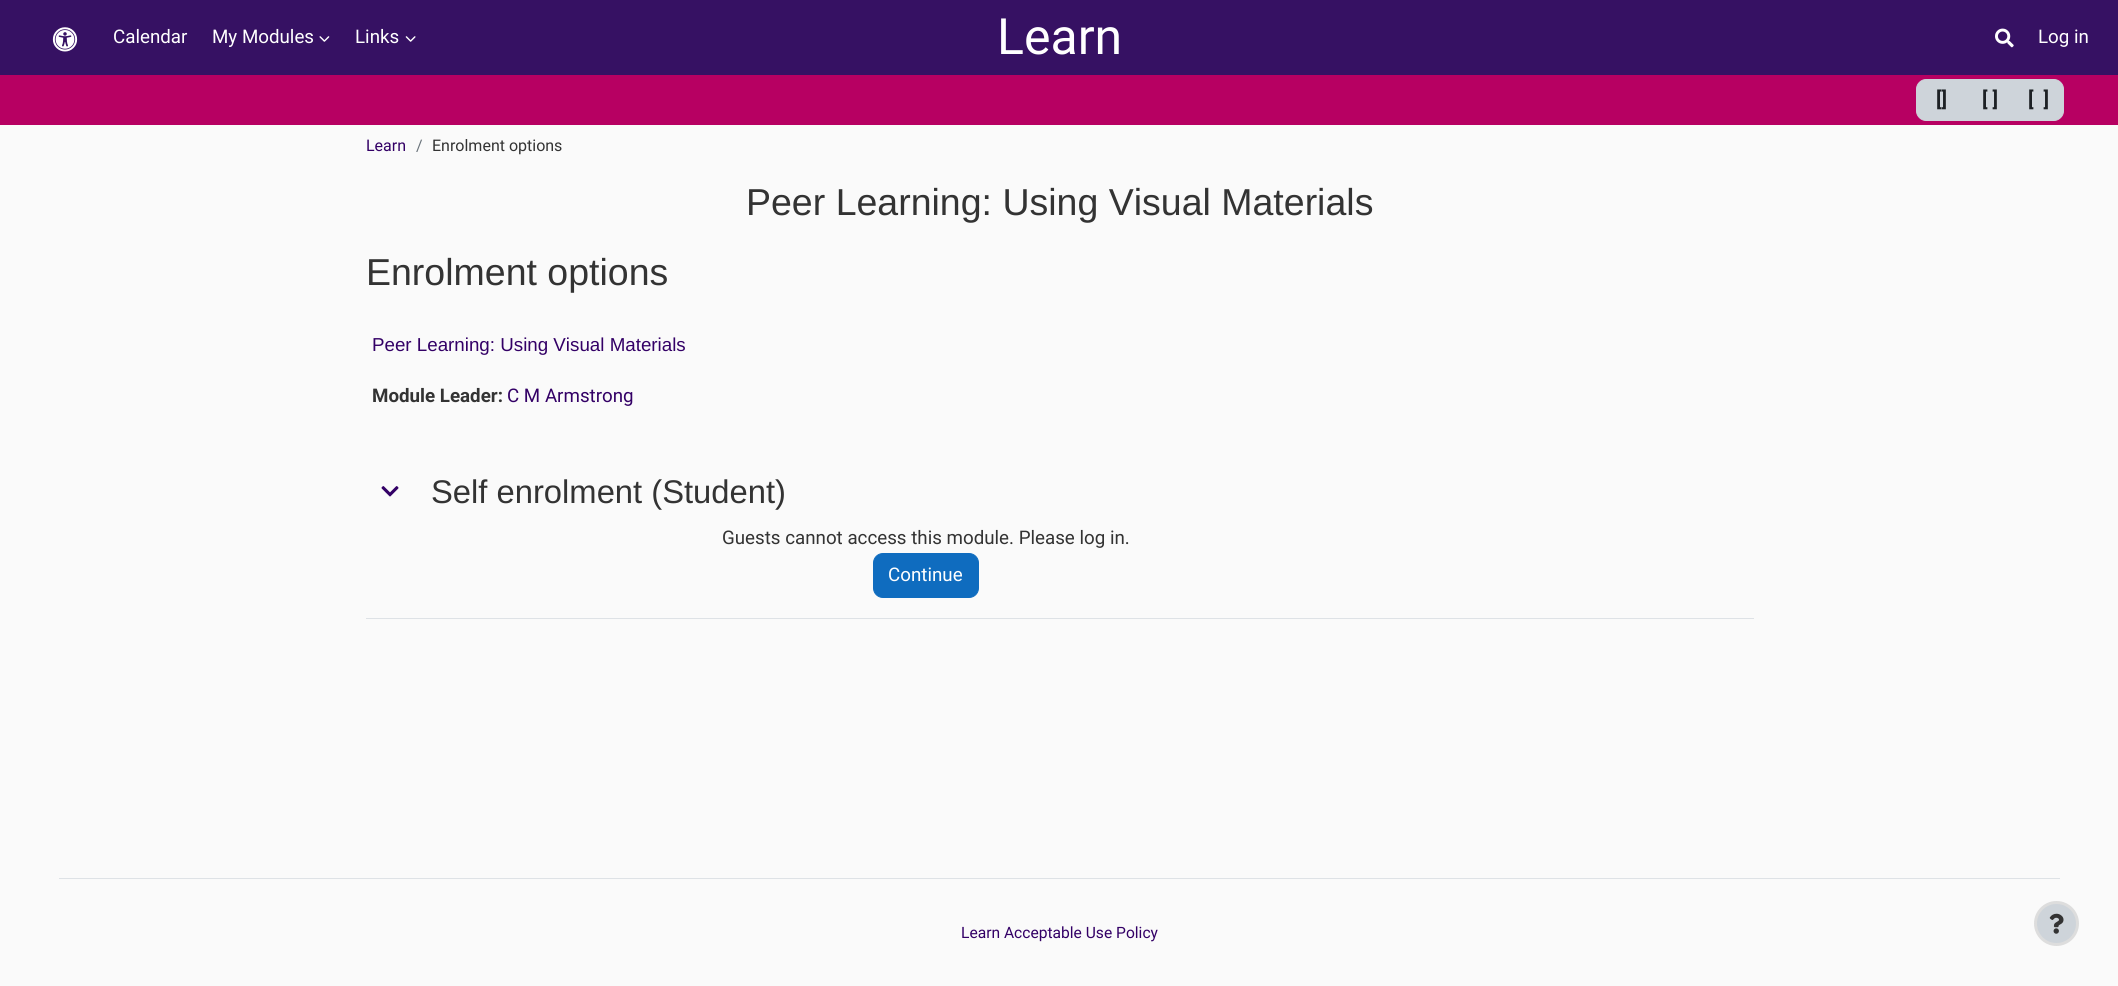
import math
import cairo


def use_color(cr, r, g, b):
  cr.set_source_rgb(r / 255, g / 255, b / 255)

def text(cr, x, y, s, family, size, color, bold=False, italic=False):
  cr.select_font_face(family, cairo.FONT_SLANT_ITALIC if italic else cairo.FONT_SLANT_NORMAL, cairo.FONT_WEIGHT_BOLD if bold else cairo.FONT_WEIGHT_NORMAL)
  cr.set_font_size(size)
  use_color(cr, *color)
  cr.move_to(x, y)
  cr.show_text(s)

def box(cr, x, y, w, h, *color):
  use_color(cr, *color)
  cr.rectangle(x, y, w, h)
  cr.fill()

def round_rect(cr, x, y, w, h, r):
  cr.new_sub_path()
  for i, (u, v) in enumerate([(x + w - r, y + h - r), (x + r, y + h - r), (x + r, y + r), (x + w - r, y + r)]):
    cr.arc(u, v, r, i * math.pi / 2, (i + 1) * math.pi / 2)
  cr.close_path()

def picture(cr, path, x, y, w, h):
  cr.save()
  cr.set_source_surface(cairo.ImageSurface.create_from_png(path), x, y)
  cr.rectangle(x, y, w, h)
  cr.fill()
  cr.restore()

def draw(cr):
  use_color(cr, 250, 250, 250)
  cr.paint()
  box(cr, 0, 0, 2118, 75, 54, 17, 99)
  picture(cr, "img_01.png", 52, 27, 26, 25)
  picture(cr, "img_02.png", 319, 36, 11, 6)
  picture(cr, "img_03.png", 405, 36, 11, 6)
  picture(cr, "img_04.png", 1995, 28, 19, 20)
  box(cr, 0, 75, 2118, 50, 183, 0, 98)
  use_color(cr, 206, 212, 218)
  cr.new_path()
  cr.move_to(1926, 79.5)
  cr.line_to(1965.5, 79.5)
  cr.line_to(1965.5, 120.5)
  cr.line_to(1926, 120.5)
  cr.curve_to(1921, 120.5, 1916.5, 116, 1916.5, 111)
  cr.line_to(1916.5, 89)
  cr.curve_to(1916.5, 84, 1921, 79.5, 1926, 79.5)
  cr.close_path()
  cr.fill_preserve()
  cr.set_line_width(1)
  cr.stroke()
  box(cr, 1966, 79, 48, 42, 206, 212, 218)
  cr.new_path()
  cr.move_to(2014.5, 79.5)
  cr.line_to(2054, 79.5)
  cr.curve_to(2059, 79.5, 2063.5, 84, 2063.5, 89)
  cr.line_to(2063.5, 111)
  cr.curve_to(2063.5, 116, 2059, 120.5, 2054, 120.5)
  cr.line_to(2014.5, 120.5)
  cr.close_path()
  cr.fill_preserve()
  cr.stroke()
  box(cr, 366, 618, 1388, 1, 222, 226, 230)
  picture(cr, "img_05.png", 381, 486, 18, 11)
  use_color(cr, 15, 108, 191)
  round_rect(cr, 873.5, 553.5, 105, 44, 9.5)
  cr.fill_preserve()
  cr.stroke()
  box(cr, 59, 878, 2001, 1, 222, 226, 230)
  use_color(cr, 206, 212, 218)
  cr.arc(2056.5, 923.5, 21, 0, 2 * math.pi)
  cr.fill_preserve()
  use_color(cr, 221, 221, 221)
  cr.set_line_width(3)
  cr.stroke()
  picture(cr, "img_06.png", 2049, 913, 15, 21)
  text(cr, 113, 43, "Calendar", "Roboto", 18.75, (255, 255, 255))
  text(cr, 212, 43, "My Modules", "Roboto", 18.75, (255, 255, 255))
  text(cr, 355, 43, "Links", "Roboto", 18.75, (255, 255, 255))
  text(cr, 997, 54, "Learn", "Roboto", 50, (255, 255, 255))
  text(cr, 2038, 43, "Log in", "Roboto", 18.75, (255, 255, 255))
  text(cr, 1936, 106, "[]", "Roboto", 20, (29, 33, 37), bold=True)
  text(cr, 1982, 106, "[ ]", "Roboto", 20, (29, 33, 37), bold=True)
  text(cr, 2028, 106, "[  ]", "Roboto", 20, (29, 33, 37), bold=True)
  text(cr, 366, 151, "Learn", "Roboto", 16, (51, 0, 102))
  text(cr, 416, 151, "/", "Roboto", 16, (106, 115, 123))
  text(cr, 432, 151, "Enrolment options", "Roboto", 16, (51, 51, 51))
  text(cr, 746, 215, "Peer Learning: Using Visual Materials", "Liberation Sans", 37.5, (51, 51, 51))
  text(cr, 366, 285, "Enrolment options", "Liberation Sans", 37.5, (51, 51, 51))
  text(cr, 372, 351, "Peer Learning: Using Visual Materials", "Liberation Sans", 18.75, (51, 0, 102))
  text(cr, 372, 402, "Module Leader:", "Roboto", 18.75, (51, 51, 51), bold=True)
  text(cr, 507, 402, "C M Armstrong", "Roboto", 18.75, (51, 0, 102))
  text(cr, 431, 503, "Self enrolment (Student)", "Liberation Sans", 32.75, (51, 51, 51))
  text(cr, 722, 544, "Guests cannot access this module. Please log in.", "Roboto", 18.75, (51, 51, 51))
  text(cr, 888, 581, "Continue", "Roboto", 18.75, (255, 255, 255))
  text(cr, 961, 938, "Learn Acceptable Use Policy", "Roboto", 15.6, (51, 0, 102))


surface = cairo.ImageSurface(cairo.FORMAT_RGB24, 2118, 986)
cr = cairo.Context(surface)
options = cairo.FontOptions()
options.set_hint_metrics(cairo.HINT_METRICS_OFF)
options.set_hint_style(cairo.HINT_STYLE_NONE)
cr.set_font_options(options)
cr.set_miter_limit(4)
draw(cr)
surface.write_to_png("out.png")
